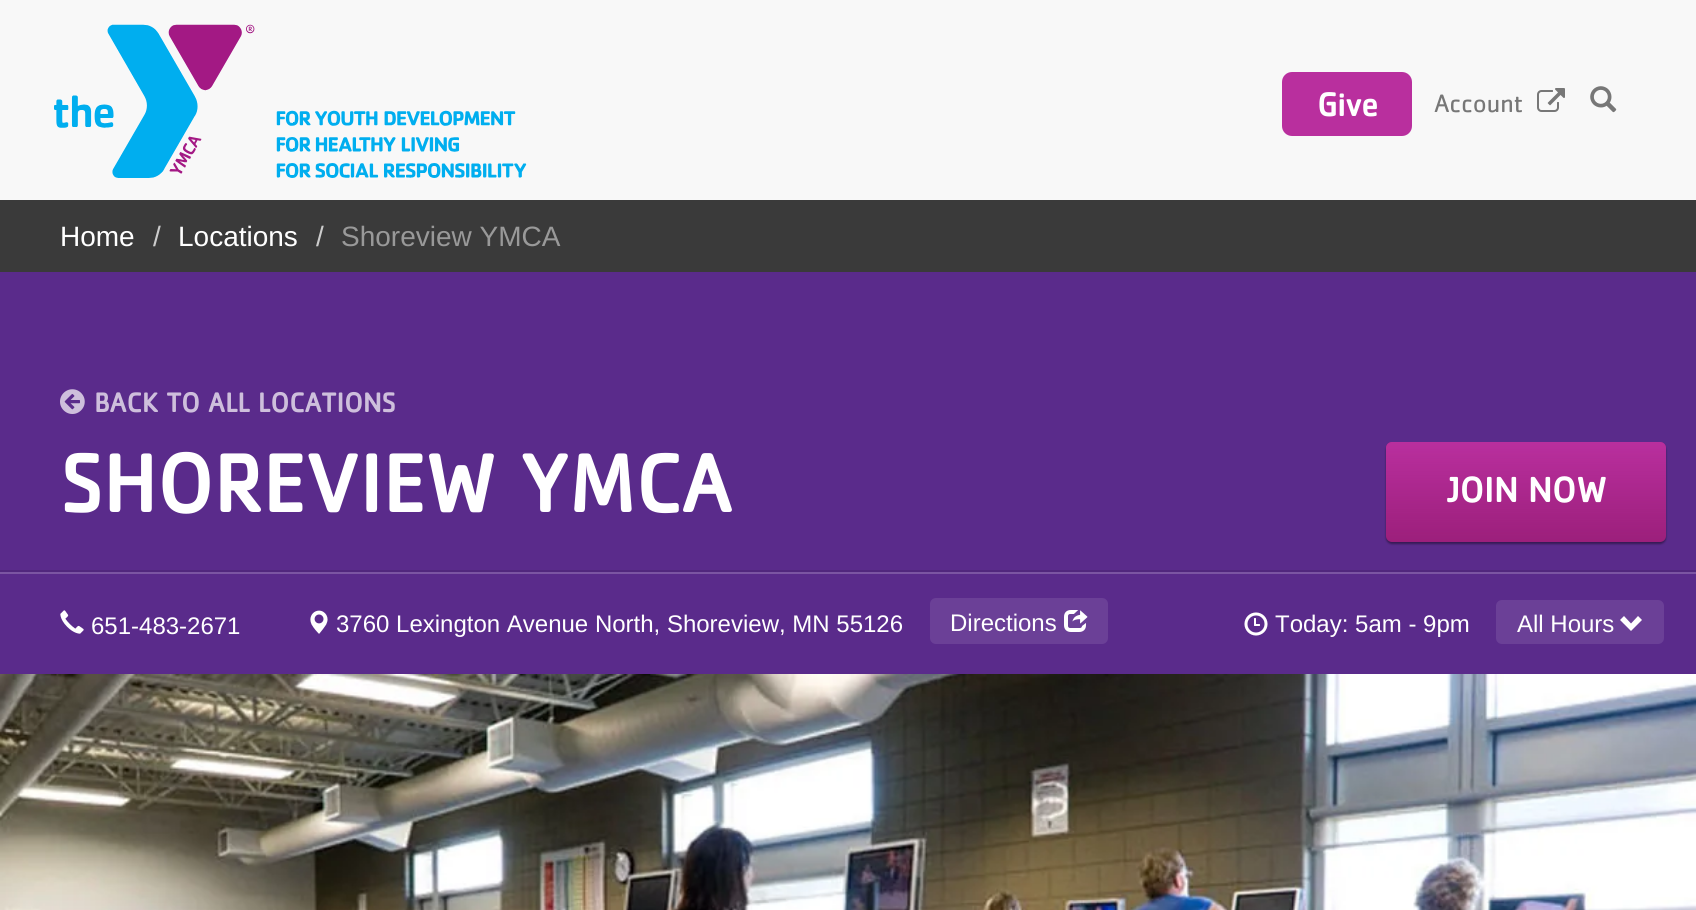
import math
import cairo


def use_color(cr, r, g, b):
  cr.set_source_rgb(r / 255, g / 255, b / 255)

def text(cr, x, y, s, family, size, color, bold=False, italic=False):
  cr.select_font_face(family, cairo.FONT_SLANT_ITALIC if italic else cairo.FONT_SLANT_NORMAL, cairo.FONT_WEIGHT_BOLD if bold else cairo.FONT_WEIGHT_NORMAL)
  cr.set_font_size(size)
  use_color(cr, *color)
  cr.move_to(x, y)
  cr.show_text(s)

def box(cr, x, y, w, h, *color):
  use_color(cr, *color)
  cr.rectangle(x, y, w, h)
  cr.fill()

def round_rect(cr, x, y, w, h, r):
  cr.new_sub_path()
  for i, (u, v) in enumerate([(x + w - r, y + h - r), (x + r, y + h - r), (x + r, y + r), (x + w - r, y + r)]):
    cr.arc(u, v, r, i * math.pi / 2, (i + 1) * math.pi / 2)
  cr.close_path()

def shadow(cr, x, y, w, h, r, blur, alpha):
  cr.push_group_with_content(cairo.CONTENT_ALPHA)
  cr.set_operator(cairo.OPERATOR_SOURCE)
  for i in range(15, -16, -2):
    e = blur * i / 6
    if min(w, h) + 2 * e > 0:
      cr.set_source_rgba(0, 0, 0, alpha * math.erfc((i - 1) / 8.5) / 2)
      round_rect(cr, x - e, y - e, w + 2 * e, h + 2 * e, max(0, min(r + e + blur * .6, min(w, h) / 2 + e)))
      cr.fill()
  cr.mask(cr.pop_group())

def picture(cr, path, x, y, w, h):
  cr.save()
  cr.set_source_surface(cairo.ImageSurface.create_from_png(path), x, y)
  cr.rectangle(x, y, w, h)
  cr.fill()
  cr.restore()

def draw(cr):
  use_color(cr, 58, 58, 58)
  cr.paint()
  box(cr, 0, 0, 1696, 200, 248, 248, 248)
  picture(cr, "img_01.png", 54, 24, 473, 154)
  use_color(cr, 185, 47, 158)
  round_rect(cr, 1284, 74, 126, 60, 8)
  cr.fill_preserve()
  cr.set_line_width(4)
  cr.stroke()
  picture(cr, "img_02.png", 1537, 88, 28, 24)
  picture(cr, "img_03.png", 1590, 86, 27, 27)
  box(cr, 0, 272, 1696, 402, 90, 43, 139)
  use_color(cr, 0, 0, 0)
  shadow(cr, 1386, 444, 280, 100, 6, 1, 0.4)
  use_color(cr, 156, 31, 123)
  round_rect(cr, 1386, 442, 280, 100, 6)
  cr.fill()
  gradient = cairo.LinearGradient(1526, 442, 1526, 542)
  gradient.add_color_stop_rgba(0, 0.725, 0.184, 0.62, 1)
  gradient.add_color_stop_rgba(1, 0.725, 0.184, 0.62, 0)
  cr.set_source(gradient)
  round_rect(cr, 1386, 442, 280, 100, 6)
  cr.fill()
  box(cr, 0, 570, 1696, 2, 81, 39, 125)
  box(cr, 0, 572, 1696, 2, 123, 85, 162)
  picture(cr, "img_04.png", 60, 610, 24, 24)
  picture(cr, "img_05.png", 310, 610, 18, 24)
  use_color(cr, 107, 64, 151)
  round_rect(cr, 930, 598, 178, 46, 6)
  cr.fill()
  picture(cr, "img_06.png", 1064, 610, 24, 22)
  picture(cr, "img_07.png", 1244, 612, 24, 24)
  round_rect(cr, 1496, 600, 168, 44, 6)
  cr.fill()
  use_color(cr, 255, 255, 255)
  cr.new_path()
  cr.move_to(1642, 620)
  cr.line_to(1631, 631)
  cr.line_to(1620, 620)
  cr.line_to(1624, 616)
  cr.line_to(1631, 623.5)
  cr.line_to(1638, 616)
  cr.close_path()
  cr.fill()
  picture(cr, "img_08.png", 0, 674, 1696, 236)
  text(cr, 1317, 116, "Give", "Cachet", 34, (255, 255, 255), bold=True)
  text(cr, 1434, 112, "Account", "Cachet", 26, (119, 119, 119))
  text(cr, 60, 246, "Home", "Liberation Sans", 28, (255, 255, 255))
  text(cr, 153, 246, "/", "Liberation Sans", 28, (204, 204, 204))
  text(cr, 178, 246, "Locations", "Liberation Sans", 28, (255, 255, 255))
  text(cr, 316, 246, "/", "Liberation Sans", 28, (204, 204, 204))
  text(cr, 341, 246, "Shoreview YMCA", "Liberation Sans", 28, (153, 153, 153))
  text(cr, 60, 412, "{", "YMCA", 28, (206, 191, 220), bold=True)
  text(cr, 94, 412, "BACK TO ALL LOCATIONS", "Cachet", 28, (206, 191, 220), bold=True)
  text(cr, 60, 512, "SHOREVIEW YMCA", "Cachet", 84, (255, 255, 255), bold=True)
  text(cr, 1447, 502, "JOIN NOW", "Cachet", 36, (255, 255, 255), bold=True)
  text(cr, 91, 634, "651-483-2671", "Liberation Sans", 24, (255, 255, 255))
  text(cr, 336, 632, "3760 Lexington Avenue North, Shoreview, MN 55126", "Liberation Sans", 24, (255, 255, 255))
  text(cr, 950, 631, "Directions", "Liberation Sans", 24, (255, 255, 255))
  text(cr, 1275, 632, "Today: 5am - 9pm", "Liberation Sans", 24, (255, 255, 255))
  text(cr, 1517, 632, "All Hours", "Liberation Sans", 24, (255, 255, 255))


surface = cairo.ImageSurface(cairo.FORMAT_RGB24, 1696, 910)
cr = cairo.Context(surface)
options = cairo.FontOptions()
options.set_hint_metrics(cairo.HINT_METRICS_OFF)
options.set_hint_style(cairo.HINT_STYLE_NONE)
cr.set_font_options(options)
cr.set_miter_limit(4)
draw(cr)
surface.write_to_png("out.png")
